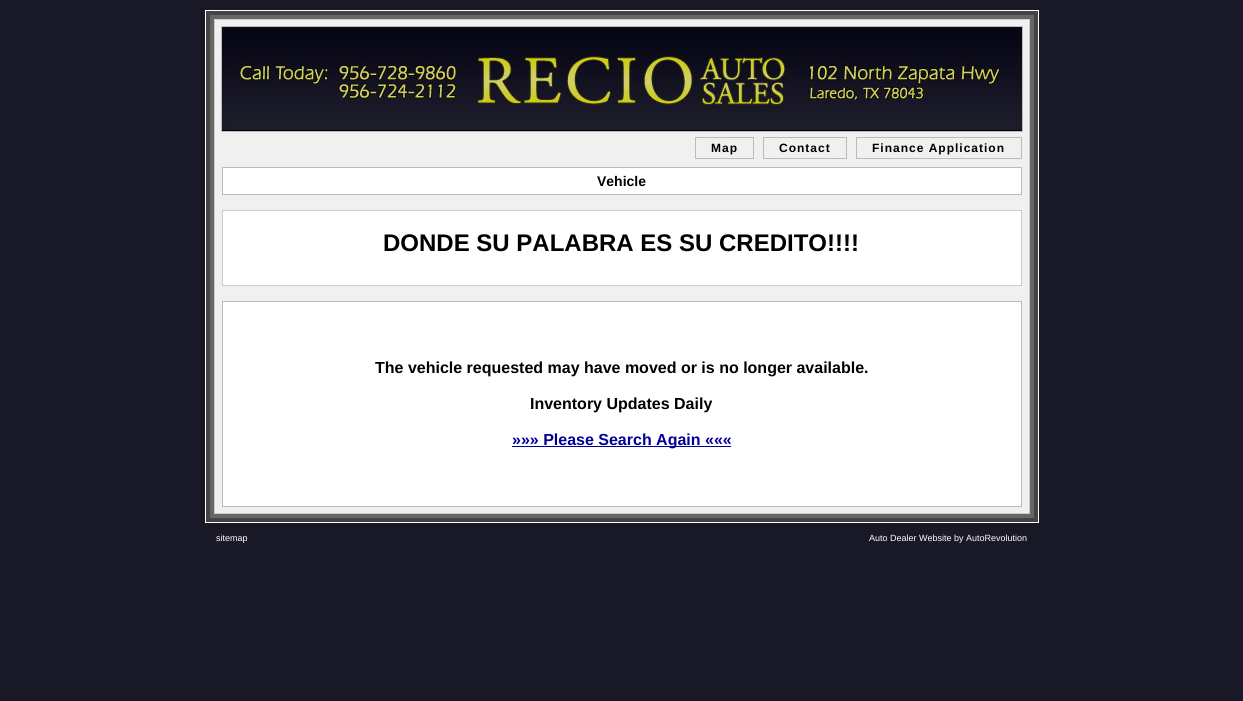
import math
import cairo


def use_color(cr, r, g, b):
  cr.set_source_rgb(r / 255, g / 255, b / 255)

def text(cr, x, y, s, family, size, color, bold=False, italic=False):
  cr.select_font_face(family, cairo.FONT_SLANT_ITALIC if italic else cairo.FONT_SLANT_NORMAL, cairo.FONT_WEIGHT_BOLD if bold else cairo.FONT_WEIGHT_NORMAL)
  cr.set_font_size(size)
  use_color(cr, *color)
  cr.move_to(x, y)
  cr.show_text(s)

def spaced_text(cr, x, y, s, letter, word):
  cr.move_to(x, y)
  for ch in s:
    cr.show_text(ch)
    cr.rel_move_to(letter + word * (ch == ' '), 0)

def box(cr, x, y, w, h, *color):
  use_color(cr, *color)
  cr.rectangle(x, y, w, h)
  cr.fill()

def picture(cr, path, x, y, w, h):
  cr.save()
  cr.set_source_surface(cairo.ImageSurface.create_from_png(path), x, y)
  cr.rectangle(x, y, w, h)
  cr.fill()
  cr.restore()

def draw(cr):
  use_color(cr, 25, 24, 38)
  cr.paint()
  cr.rectangle(205.5, 10.5, 833, 512)
  use_color(cr, 255, 255, 255)
  cr.set_line_width(1)
  cr.stroke()
  use_color(cr, 102, 102, 102)
  cr.rectangle(208, 13, 828, 507)
  cr.fill_preserve()
  use_color(cr, 68, 68, 68)
  cr.set_line_width(4)
  cr.stroke()
  use_color(cr, 240, 240, 240)
  cr.rectangle(214.5, 19.5, 815, 494)
  cr.fill_preserve()
  use_color(cr, 204, 204, 204)
  cr.set_line_width(1)
  cr.stroke()
  cr.rectangle(221.5, 26.5, 801, 105)
  use_color(cr, 187, 187, 187)
  cr.stroke()
  picture(cr, "img_01.png", 222, 27, 800, 104)
  cr.rectangle(695.5, 137.5, 58, 21)
  cr.stroke()
  cr.rectangle(763.5, 137.5, 83, 21)
  cr.stroke()
  cr.rectangle(856.5, 137.5, 165, 21)
  cr.stroke()
  box(cr, 223, 168, 798, 26, 255, 255, 255)
  box(cr, 222, 167, 800, 1, 187, 187, 187)
  box(cr, 1021, 167, 1, 28, 187, 187, 187)
  box(cr, 222, 194, 800, 1, 187, 187, 187)
  box(cr, 222, 167, 1, 28, 187, 187, 187)
  use_color(cr, 255, 255, 255)
  cr.rectangle(222.5, 210.5, 799, 75)
  cr.fill_preserve()
  use_color(cr, 204, 204, 204)
  cr.stroke()
  box(cr, 223, 302, 798, 204, 255, 255, 255)
  box(cr, 222, 301, 800, 1, 187, 187, 187)
  box(cr, 1021, 301, 1, 206, 187, 187, 187)
  box(cr, 222, 506, 800, 1, 187, 187, 187)
  box(cr, 222, 301, 1, 206, 187, 187, 187)
  box(cr, 512, 446, 219, 1, 0, 0, 153)
  cr.select_font_face("Liberation Sans", cairo.FONT_SLANT_NORMAL, cairo.FONT_WEIGHT_BOLD)
  cr.set_font_size(12)
  use_color(cr, 0, 0, 0)
  spaced_text(cr, 711, 152, "Map", 1, 0)
  spaced_text(cr, 779, 152, "Contact", 1, 0)
  spaced_text(cr, 872, 152, "Finance Application", 1, 0)
  text(cr, 597, 186, "Vehicle", "Liberation Sans", 14, (0, 0, 0), bold=True)
  text(cr, 383, 251, "DONDE SU PALABRA ES SU CREDITO!!!!", "Liberation Sans", 24, (0, 0, 0), bold=True)
  text(cr, 375, 373, "The vehicle requested may have moved or is no longer available.", "Liberation Sans", 16, (0, 0, 0), bold=True)
  text(cr, 530, 409, "Inventory Updates Daily", "Liberation Sans", 16, (0, 0, 0), bold=True)
  text(cr, 512, 445, "»»» Please Search Again «««", "Liberation Sans", 16, (0, 0, 153), bold=True)
  text(cr, 216, 541, "sitemap", "Liberation Sans", 9, (255, 255, 255))
  text(cr, 869, 541, "Auto Dealer Website by AutoRevolution", "Liberation Sans", 9, (255, 255, 255))


surface = cairo.ImageSurface(cairo.FORMAT_RGB24, 1243, 701)
cr = cairo.Context(surface)
options = cairo.FontOptions()
options.set_hint_metrics(cairo.HINT_METRICS_OFF)
options.set_hint_style(cairo.HINT_STYLE_NONE)
cr.set_font_options(options)
cr.set_miter_limit(4)
draw(cr)
surface.write_to_png("out.png")
